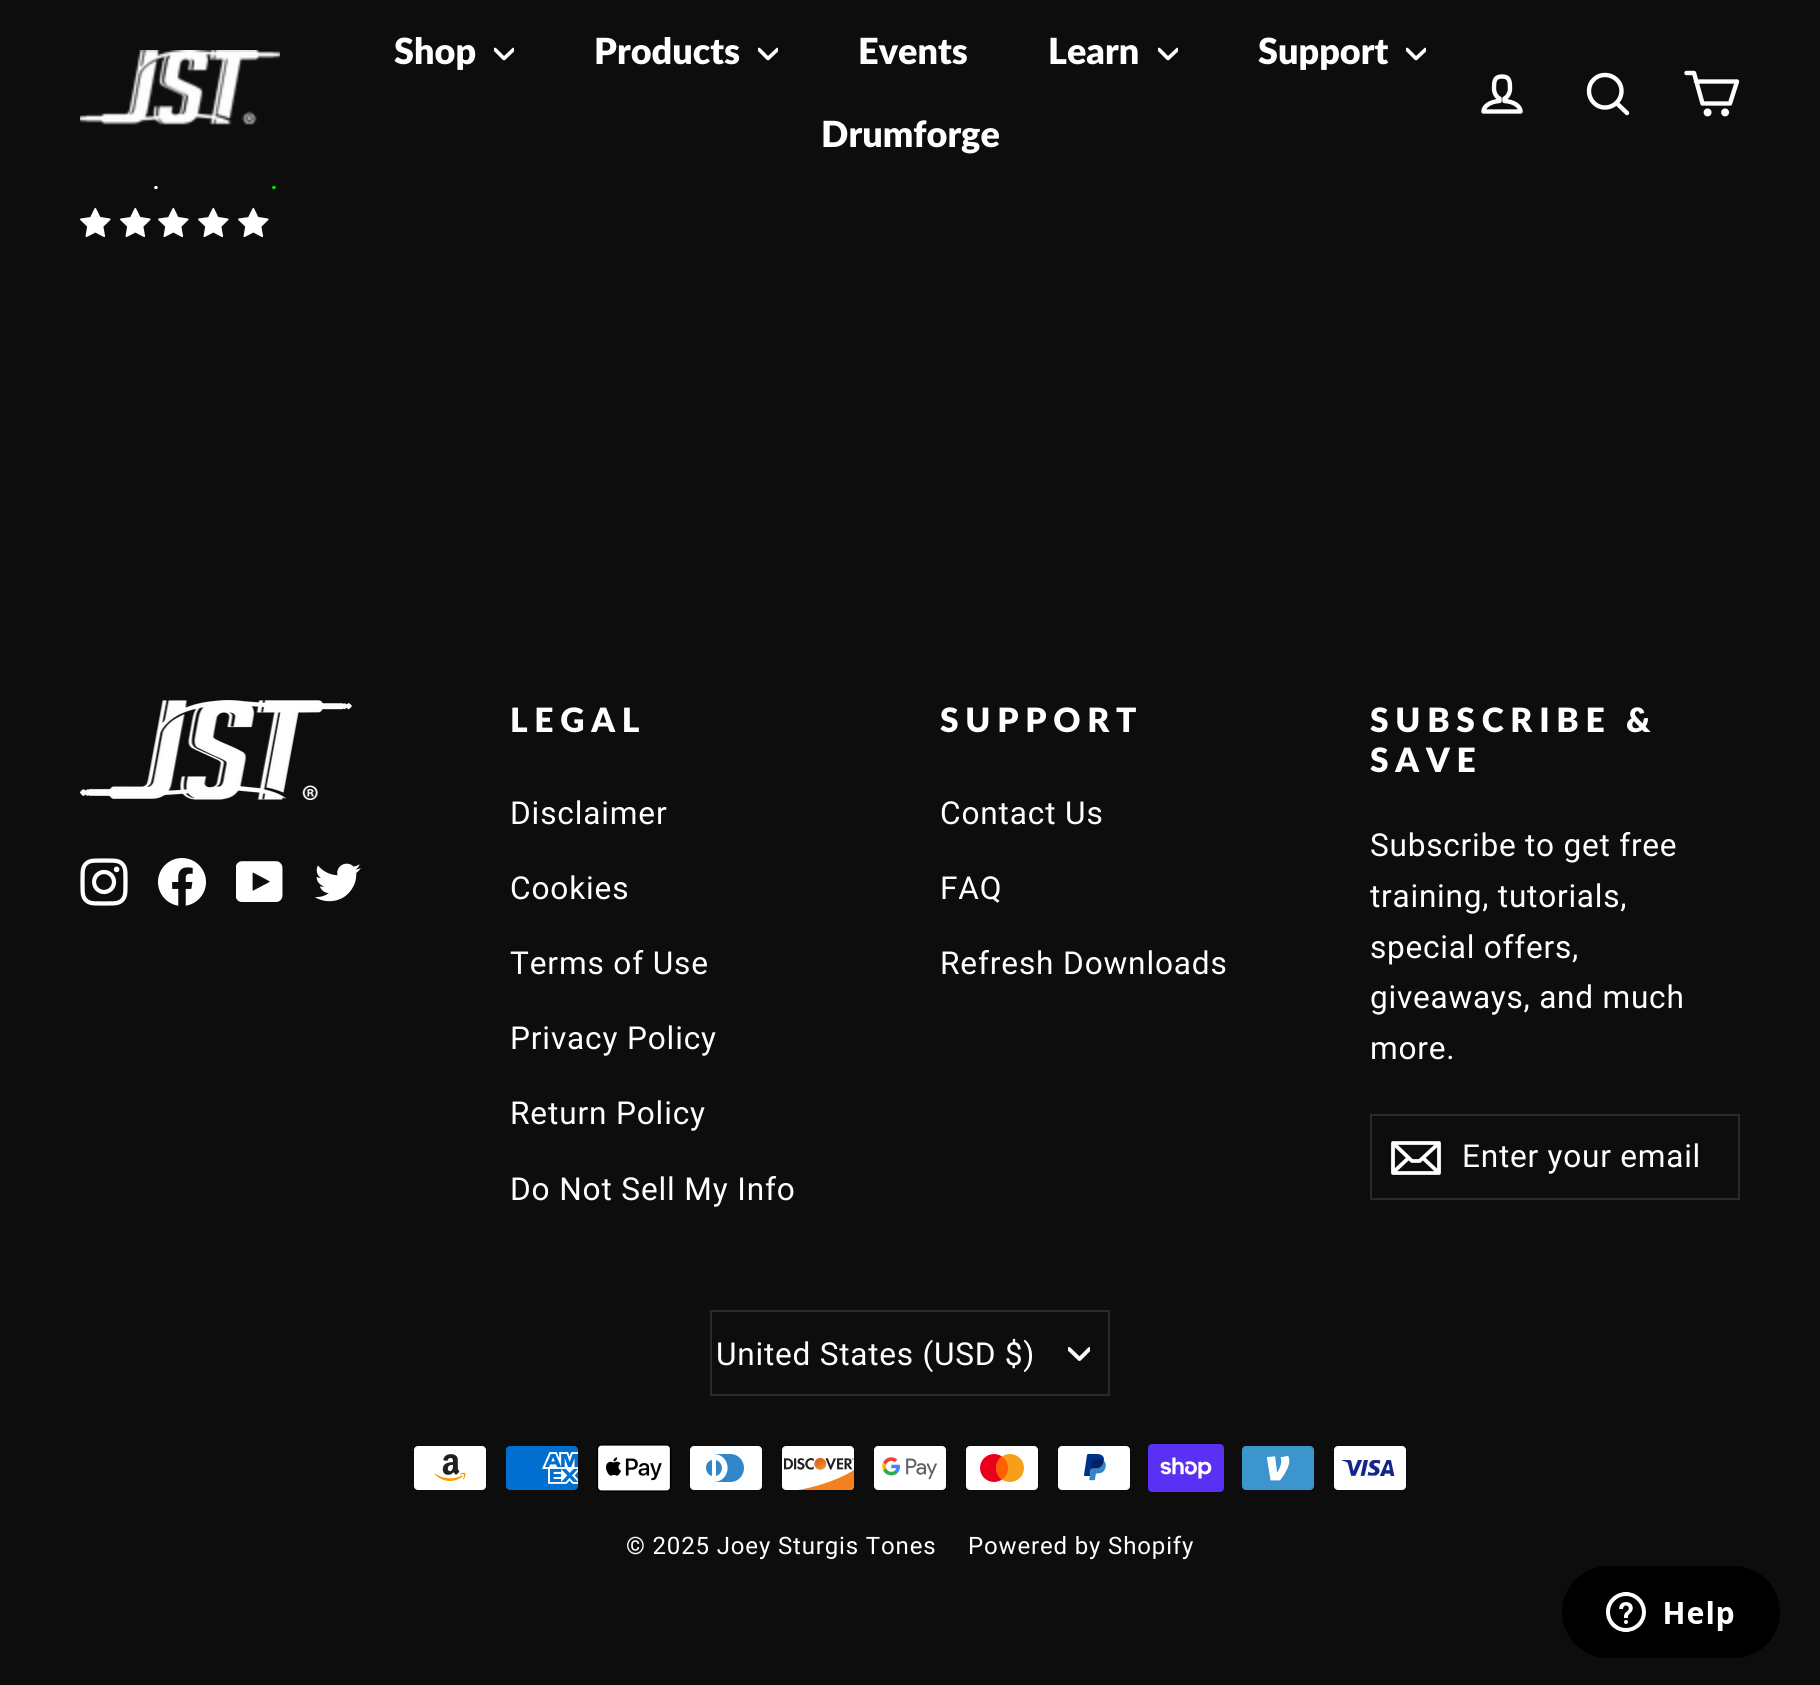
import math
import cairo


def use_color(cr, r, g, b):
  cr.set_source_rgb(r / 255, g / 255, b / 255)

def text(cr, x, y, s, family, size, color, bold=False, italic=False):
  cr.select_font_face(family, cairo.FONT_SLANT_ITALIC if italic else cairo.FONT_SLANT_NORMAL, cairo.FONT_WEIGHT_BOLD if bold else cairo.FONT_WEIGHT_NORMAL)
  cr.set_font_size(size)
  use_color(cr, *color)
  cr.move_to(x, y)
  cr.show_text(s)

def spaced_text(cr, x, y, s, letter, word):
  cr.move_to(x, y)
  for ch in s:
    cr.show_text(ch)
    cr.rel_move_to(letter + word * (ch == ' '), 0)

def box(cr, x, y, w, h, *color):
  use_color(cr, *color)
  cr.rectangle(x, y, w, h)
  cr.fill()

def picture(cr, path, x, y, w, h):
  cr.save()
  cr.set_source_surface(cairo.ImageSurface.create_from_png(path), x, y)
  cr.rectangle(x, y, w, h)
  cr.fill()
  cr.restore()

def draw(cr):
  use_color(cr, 13, 13, 13)
  cr.paint()
  picture(cr, "img_01.png", 80, 50, 200, 75)
  cr.save()
  cr.rectangle(494, 44, 20, 20)
  cr.clip()
  cr.new_path()
  cr.move_to(495, 49.5)
  cr.line_to(504, 58.5)
  cr.line_to(513.5, 49.5)
  use_color(cr, 255, 255, 255)
  cr.set_line_width(3.6)
  cr.set_line_cap(cairo.LINE_CAP_ROUND)
  cr.set_line_join(cairo.LINE_JOIN_ROUND)
  cr.stroke()
  cr.restore()
  cr.save()
  cr.rectangle(758, 44, 20, 20)
  cr.clip()
  cr.new_path()
  cr.move_to(759, 49.5)
  cr.line_to(768, 58.5)
  cr.line_to(777.5, 49.5)
  use_color(cr, 255, 255, 255)
  cr.set_line_width(3.6)
  cr.set_line_cap(cairo.LINE_CAP_ROUND)
  cr.set_line_join(cairo.LINE_JOIN_ROUND)
  cr.stroke()
  cr.restore()
  cr.save()
  cr.rectangle(1158, 44, 20, 20)
  cr.clip()
  cr.new_path()
  cr.move_to(1159, 49.5)
  cr.line_to(1168, 58.5)
  cr.line_to(1177.5, 49.5)
  use_color(cr, 255, 255, 255)
  cr.set_line_width(3.6)
  cr.set_line_cap(cairo.LINE_CAP_ROUND)
  cr.set_line_join(cairo.LINE_JOIN_ROUND)
  cr.stroke()
  cr.restore()
  cr.save()
  cr.rectangle(1406, 44, 20, 20)
  cr.clip()
  cr.new_path()
  cr.move_to(1407, 49.5)
  cr.line_to(1416, 58.5)
  cr.line_to(1425.5, 49.5)
  use_color(cr, 255, 255, 255)
  cr.set_line_width(3.6)
  cr.set_line_cap(cairo.LINE_CAP_ROUND)
  cr.set_line_join(cairo.LINE_JOIN_ROUND)
  cr.stroke()
  cr.restore()
  cr.new_path()
  cr.move_to(1504.5, 101)
  cr.line_to(1504.5, 98.5)
  cr.curve_to(1507.5, 97, 1510, 93, 1510, 88.5)
  cr.curve_to(1510, 82, 1510, 76.5, 1502, 76.5)
  cr.curve_to(1494, 76.5, 1494, 82, 1494, 88.5)
  cr.curve_to(1494, 93, 1496.5, 97, 1499.5, 98.5)
  cr.line_to(1499.5, 101)
  cr.curve_to(1490.5, 101.5, 1483.5, 106, 1483.5, 111.5)
  cr.line_to(1520.5, 111.5)
  cr.curve_to(1520.5, 106, 1513.5, 101.5, 1504.5, 101)
  cr.close_path()
  use_color(cr, 255, 255, 255)
  cr.set_line_width(4.4)
  cr.set_line_cap(cairo.LINE_CAP_ROUND)
  cr.set_line_join(cairo.LINE_JOIN_ROUND)
  cr.stroke()
  cr.new_path()
  cr.move_to(1621.5, 91)
  cr.curve_to(1621.5, 100, 1614, 107.5, 1605, 107.5)
  cr.curve_to(1596, 107.5, 1589, 100, 1589, 91)
  cr.curve_to(1589, 82, 1596, 75, 1605, 75)
  cr.curve_to(1614, 75, 1621.5, 82, 1621.5, 91)
  cr.close_path()
  cr.move_to(1627, 113)
  cr.line_to(1616.5, 103)
  cr.stroke()
  cr.new_path()
  cr.move_to(1696, 81.5)
  cr.line_to(1737, 81.5)
  cr.line_to(1730, 103.5)
  cr.line_to(1702.5, 103.5)
  cr.line_to(1694, 73)
  cr.line_to(1686.5, 73)
  cr.stroke()
  cr.arc(1707.6, 112.4, 1.8, 0, 2 * math.pi)
  cr.fill_preserve()
  cr.set_line_cap(cairo.LINE_CAP_BUTT)
  cr.set_line_join(cairo.LINE_JOIN_MITER)
  cr.stroke()
  cr.arc(1725.1, 112.4, 1.8, 0, 2 * math.pi)
  cr.fill_preserve()
  cr.stroke()
  picture(cr, "img_02.png", 80, 208, 31, 30)
  picture(cr, "img_02.png", 120, 208, 31, 30)
  picture(cr, "img_02.png", 158, 208, 31, 30)
  picture(cr, "img_02.png", 198, 208, 31, 30)
  picture(cr, "img_02.png", 238, 208, 31, 30)
  picture(cr, "img_03.png", 80, 700, 272, 100)
  picture(cr, "img_04.png", 80, 858, 48, 48)
  picture(cr, "img_05.png", 158, 858, 48, 48)
  picture(cr, "img_06.png", 236, 861, 47, 41)
  picture(cr, "img_07.png", 315, 863, 46, 39)
  cr.rectangle(1371, 1115, 368, 84)
  use_color(cr, 42, 42, 42)
  cr.set_line_width(2)
  cr.stroke()
  cr.new_path()
  cr.move_to(1439, 1173)
  cr.line_to(1393, 1173)
  cr.line_to(1393, 1143)
  cr.line_to(1439, 1143)
  cr.close_path()
  cr.move_to(1393, 1143)
  cr.line_to(1412, 1161)
  cr.line_to(1419.5, 1161)
  cr.line_to(1439, 1143)
  cr.move_to(1408.5, 1158)
  cr.line_to(1393, 1172.5)
  cr.move_to(1439, 1173)
  cr.line_to(1423, 1158)
  use_color(cr, 255, 255, 255)
  cr.set_line_width(3.8)
  cr.set_line_cap(cairo.LINE_CAP_ROUND)
  cr.set_line_join(cairo.LINE_JOIN_ROUND)
  cr.stroke()
  cr.rectangle(711, 1311, 398, 84)
  use_color(cr, 42, 42, 42)
  cr.set_line_width(2)
  cr.set_line_cap(cairo.LINE_CAP_BUTT)
  cr.set_line_join(cairo.LINE_JOIN_MITER)
  cr.stroke()
  cr.save()
  cr.rectangle(1068, 1344, 22, 22)
  cr.clip()
  cr.new_path()
  cr.move_to(1069, 1349)
  cr.line_to(1079.5, 1359)
  cr.line_to(1089.5, 1349)
  use_color(cr, 255, 255, 255)
  cr.set_line_width(3.9)
  cr.set_line_cap(cairo.LINE_CAP_ROUND)
  cr.set_line_join(cairo.LINE_JOIN_ROUND)
  cr.stroke()
  cr.restore()
  picture(cr, "img_08.png", 414, 1446, 72, 44)
  picture(cr, "img_09.png", 506, 1446, 72, 44)
  picture(cr, "img_10.png", 596, 1444, 76, 48)
  picture(cr, "img_11.png", 690, 1446, 72, 44)
  picture(cr, "img_12.png", 782, 1446, 73, 44)
  picture(cr, "img_13.png", 874, 1446, 72, 44)
  picture(cr, "img_14.png", 966, 1446, 72, 44)
  picture(cr, "img_15.png", 1058, 1446, 72, 44)
  picture(cr, "img_16.png", 1148, 1444, 76, 48)
  picture(cr, "img_17.png", 1242, 1446, 72, 44)
  picture(cr, "img_18.png", 1334, 1446, 72, 44)
  picture(cr, "img_19.png", 1562, 1566, 218, 92)
  text(cr, 394, 64, "Shop", "Lato ExtraBold", 36, (255, 255, 255))
  text(cr, 594, 64, "Products", "Lato ExtraBold", 36, (255, 255, 255))
  text(cr, 858, 64, "Events", "Lato ExtraBold", 36, (255, 255, 255))
  text(cr, 1048, 64, "Learn", "Lato ExtraBold", 36, (255, 255, 255))
  text(cr, 1258, 64, "Support", "Lato ExtraBold", 36, (255, 255, 255))
  text(cr, 821, 147, "Drumforge", "Lato ExtraBold", 36, (255, 255, 255))
  cr.select_font_face("Roboto")
  cr.set_font_size(31)
  spaced_text(cr, 152, 189, ".", 0.85, 0)
  use_color(cr, 0, 238, 0)
  spaced_text(cr, 270, 189, ".", 0.85, 0)
  box(cr, 155, 185, 120, 1, 13, 13, 13)
  cr.select_font_face("Lato ExtraBold")
  cr.set_font_size(33.5)
  use_color(cr, 255, 255, 255)
  spaced_text(cr, 510, 732, "LEGAL", 6.75, 0)
  cr.select_font_face("Roboto")
  cr.set_font_size(31.6)
  spaced_text(cr, 510, 824, "Disclaimer", 0.85, 0)
  spaced_text(cr, 510, 899, "Cookies", 0.85, 0)
  spaced_text(cr, 510, 974, "Terms of Use", 0.85, 0)
  spaced_text(cr, 510, 1049, "Privacy Policy", 0.85, 0)
  spaced_text(cr, 510, 1124, "Return Policy", 0.85, 0)
  spaced_text(cr, 510, 1200, "Do Not Sell My Info", 0.85, 0)
  cr.select_font_face("Lato ExtraBold")
  cr.set_font_size(33.5)
  spaced_text(cr, 940, 732, "SUPPORT", 6.75, 0)
  cr.select_font_face("Roboto")
  cr.set_font_size(31.6)
  spaced_text(cr, 940, 824, "Contact Us", 0.85, 0)
  spaced_text(cr, 940, 899, "FAQ", 0.85, 0)
  spaced_text(cr, 940, 974, "Refresh Downloads", 0.85, 0)
  cr.select_font_face("Lato ExtraBold")
  cr.set_font_size(33.5)
  spaced_text(cr, 1370, 732, "SUBSCRIBE &", 6.75, 0)
  spaced_text(cr, 1370, 772, "SAVE", 6.75, 0)
  cr.select_font_face("Roboto")
  cr.set_font_size(31.6)
  spaced_text(cr, 1370, 856, "Subscribe to get free", 0.75, 0)
  spaced_text(cr, 1370, 907, "training, tutorials,", 0.75, 0)
  spaced_text(cr, 1370, 958, "special offers,", 0.75, 0)
  spaced_text(cr, 1370, 1008, "giveaways, and much", 0.75, 0)
  spaced_text(cr, 1370, 1059, "more.", 0.75, 0)
  spaced_text(cr, 1462, 1167, "Enter your email", 0.75, 0)
  spaced_text(cr, 716, 1365, "United States (USD $)", 0.75, 0)
  cr.set_font_size(24)
  spaced_text(cr, 626, 1554, "© 2025 Joey Sturgis Tones", 0.85, 0)
  spaced_text(cr, 968, 1554, "Powered by Shopify", 0.85, 0)


surface = cairo.ImageSurface(cairo.FORMAT_RGB24, 1820, 1685)
cr = cairo.Context(surface)
options = cairo.FontOptions()
options.set_hint_metrics(cairo.HINT_METRICS_OFF)
options.set_hint_style(cairo.HINT_STYLE_NONE)
cr.set_font_options(options)
cr.set_miter_limit(4)
draw(cr)
surface.write_to_png("out.png")
